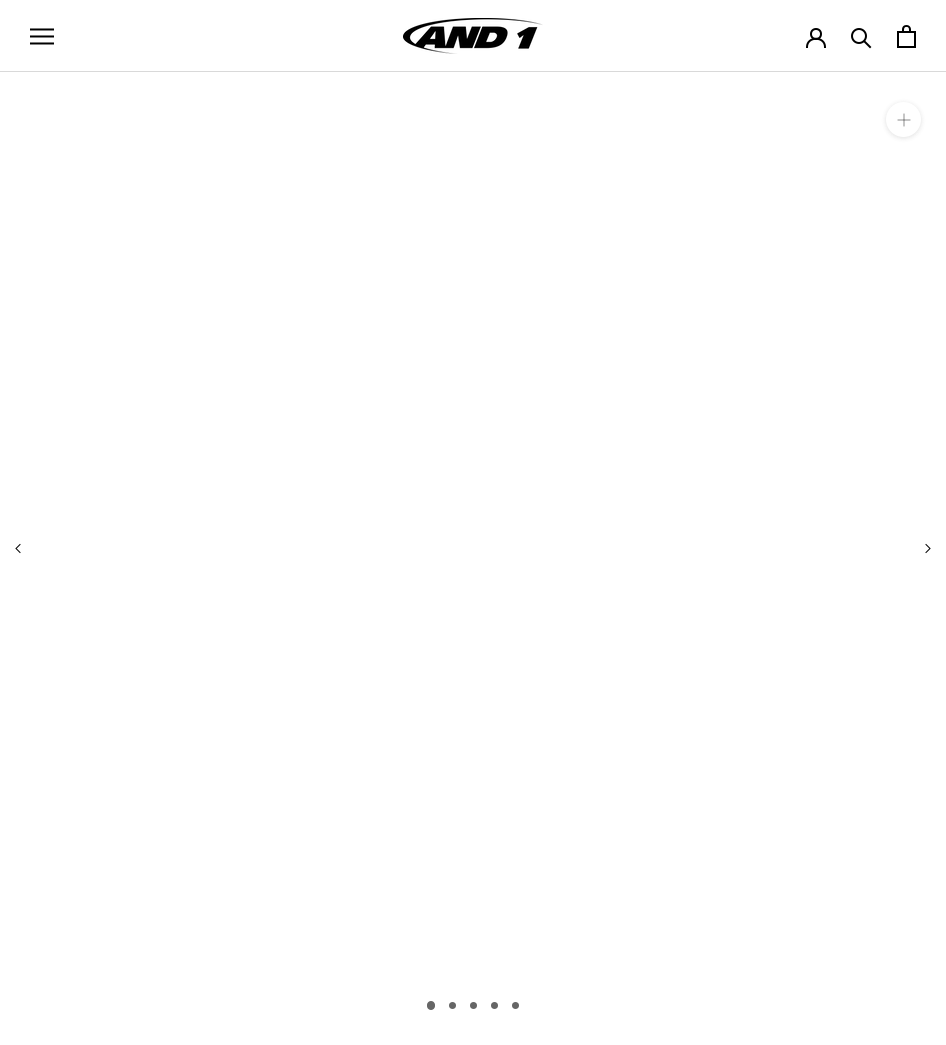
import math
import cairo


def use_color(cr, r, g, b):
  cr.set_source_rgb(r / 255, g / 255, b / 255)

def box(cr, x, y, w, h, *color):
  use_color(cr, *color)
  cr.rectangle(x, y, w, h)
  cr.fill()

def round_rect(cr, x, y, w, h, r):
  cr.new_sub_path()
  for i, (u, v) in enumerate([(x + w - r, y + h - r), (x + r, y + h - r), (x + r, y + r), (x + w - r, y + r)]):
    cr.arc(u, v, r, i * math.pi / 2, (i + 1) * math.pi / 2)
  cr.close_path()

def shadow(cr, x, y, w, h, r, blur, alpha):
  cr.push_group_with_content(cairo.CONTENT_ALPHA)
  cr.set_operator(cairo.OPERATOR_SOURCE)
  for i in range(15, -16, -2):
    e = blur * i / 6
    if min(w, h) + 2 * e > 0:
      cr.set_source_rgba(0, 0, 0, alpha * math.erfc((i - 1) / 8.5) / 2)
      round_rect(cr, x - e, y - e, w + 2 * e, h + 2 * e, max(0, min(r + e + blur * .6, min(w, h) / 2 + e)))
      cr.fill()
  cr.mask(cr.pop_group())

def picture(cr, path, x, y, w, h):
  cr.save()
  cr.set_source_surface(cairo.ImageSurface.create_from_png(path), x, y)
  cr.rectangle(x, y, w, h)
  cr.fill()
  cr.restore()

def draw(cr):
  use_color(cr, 255, 255, 255)
  cr.paint()
  box(cr, 0, 71, 946, 1, 217, 217, 217)
  picture(cr, "img_01.png", 30, 28, 24, 17)
  picture(cr, "img_02.png", 403, 18, 140, 36)
  cr.new_path()
  cr.move_to(807, 47)
  cr.curve_to(807, 36, 825, 36, 825, 47)
  use_color(cr, 0, 0, 0)
  cr.set_line_cap(cairo.LINE_CAP_SQUARE)
  cr.stroke()
  cr.arc(816, 34, 5, 0, 2 * math.pi)
  cr.set_line_cap(cairo.LINE_CAP_BUTT)
  cr.stroke()
  cr.new_path()
  cr.move_to(870, 47)
  cr.line_to(864.5, 41.5)
  cr.set_line_cap(cairo.LINE_CAP_SQUARE)
  cr.stroke()
  cr.arc(859, 36, 7, 0, 2 * math.pi)
  cr.set_line_cap(cairo.LINE_CAP_BUTT)
  cr.stroke()
  picture(cr, "img_03.png", 897, 25, 19, 23)
  use_color(cr, 54, 54, 54)
  shadow(cr, 886, 103, 35, 35, 17.5, 2.5, 0.15)
  use_color(cr, 255, 255, 255)
  cr.arc(903.5, 119.5, 17.5, 0, 2 * math.pi)
  cr.fill()
  cr.new_path()
  cr.move_to(904, 114)
  cr.line_to(904, 126)
  use_color(cr, 128, 128, 128)
  cr.set_line_width(0.9)
  cr.set_line_cap(cairo.LINE_CAP_SQUARE)
  cr.stroke()
  cr.new_path()
  cr.move_to(898, 120)
  cr.line_to(910, 120)
  cr.set_source_rgba(0, 0, 0, 0.5)
  cr.stroke()
  cr.new_path()
  cr.move_to(20, 552.5)
  cr.line_to(16, 548.5)
  cr.line_to(20, 544.5)
  use_color(cr, 0, 0, 0)
  cr.set_line_width(1)
  cr.stroke()
  cr.new_path()
  cr.move_to(926, 552.5)
  cr.line_to(930, 548.5)
  cr.line_to(926, 544.5)
  cr.stroke()
  use_color(cr, 102, 102, 102)
  round_rect(cr, 427, 1001, 8, 9, 4)
  cr.fill()
  cr.arc(452.5, 1005.5, 3.5, 0, 2 * math.pi)
  cr.fill()
  cr.arc(473.5, 1005.5, 3.5, 0, 2 * math.pi)
  cr.fill()
  cr.arc(494.5, 1005.5, 3.5, 0, 2 * math.pi)
  cr.fill()
  cr.arc(515.5, 1005.5, 3.5, 0, 2 * math.pi)
  cr.fill()


surface = cairo.ImageSurface(cairo.FORMAT_RGB24, 946, 1045)
cr = cairo.Context(surface)
options = cairo.FontOptions()
options.set_hint_metrics(cairo.HINT_METRICS_OFF)
options.set_hint_style(cairo.HINT_STYLE_NONE)
cr.set_font_options(options)
cr.set_miter_limit(4)
draw(cr)
surface.write_to_png("out.png")
